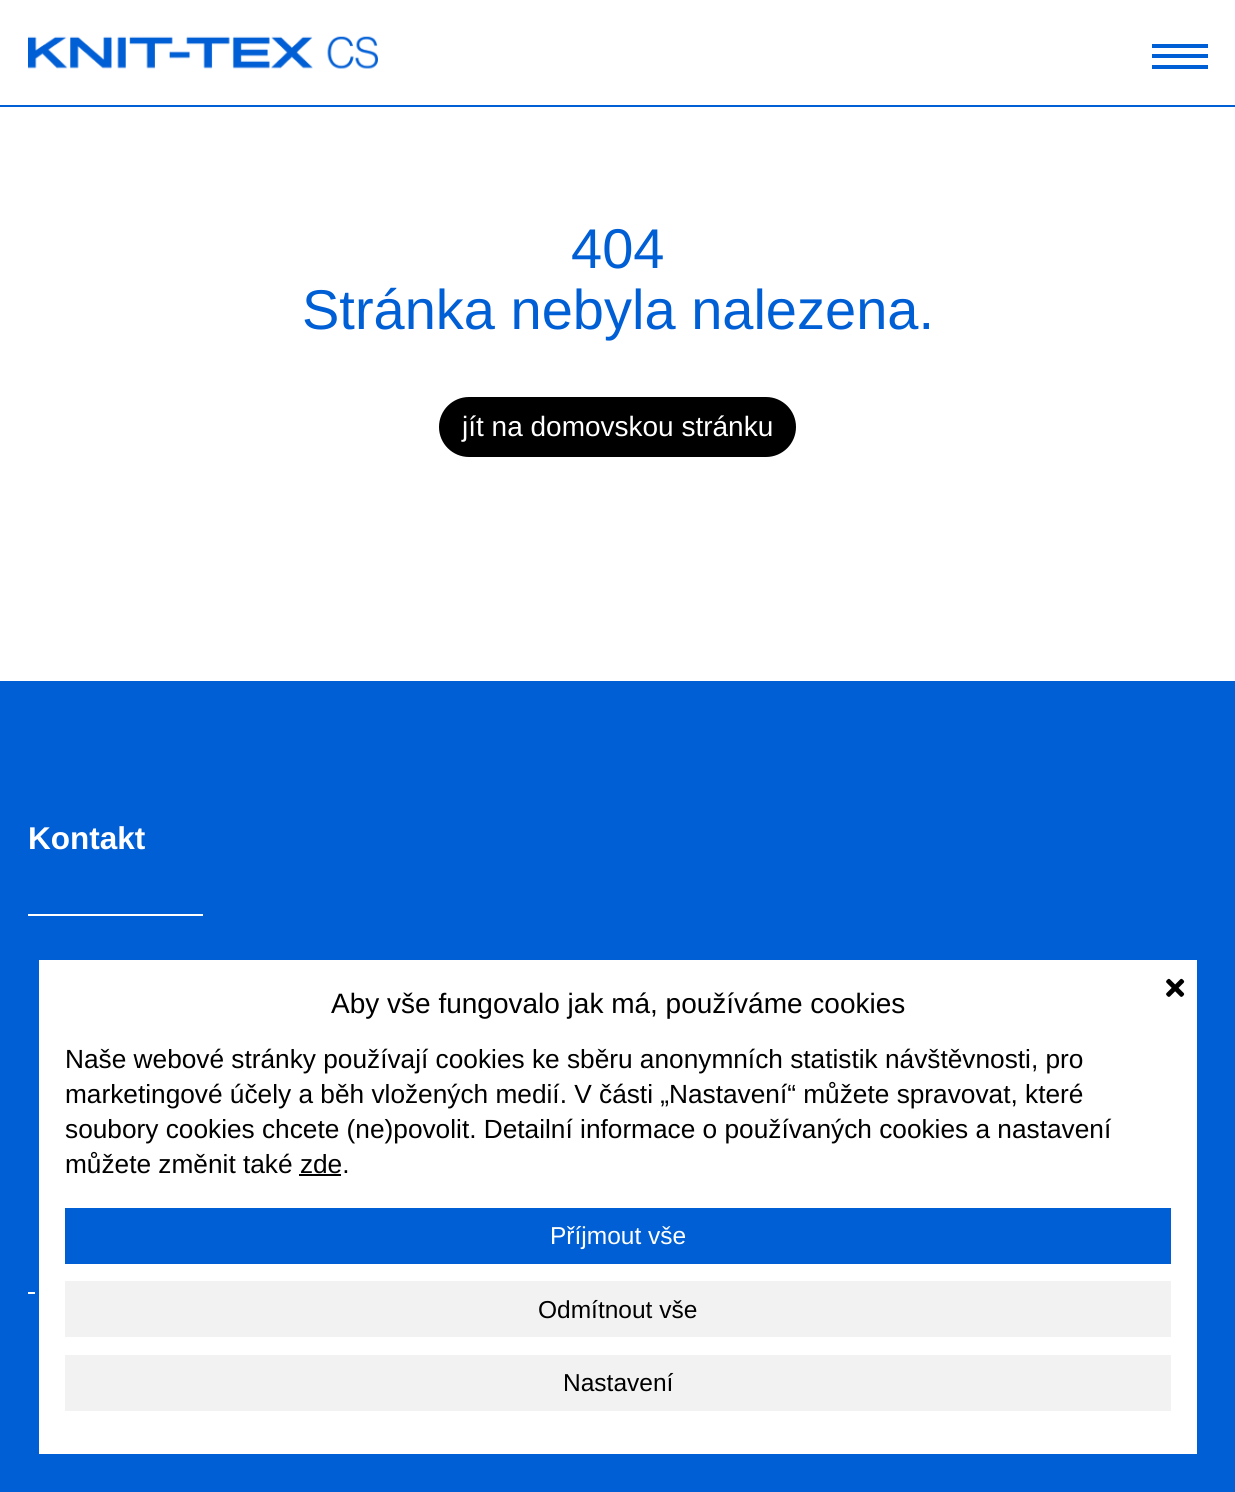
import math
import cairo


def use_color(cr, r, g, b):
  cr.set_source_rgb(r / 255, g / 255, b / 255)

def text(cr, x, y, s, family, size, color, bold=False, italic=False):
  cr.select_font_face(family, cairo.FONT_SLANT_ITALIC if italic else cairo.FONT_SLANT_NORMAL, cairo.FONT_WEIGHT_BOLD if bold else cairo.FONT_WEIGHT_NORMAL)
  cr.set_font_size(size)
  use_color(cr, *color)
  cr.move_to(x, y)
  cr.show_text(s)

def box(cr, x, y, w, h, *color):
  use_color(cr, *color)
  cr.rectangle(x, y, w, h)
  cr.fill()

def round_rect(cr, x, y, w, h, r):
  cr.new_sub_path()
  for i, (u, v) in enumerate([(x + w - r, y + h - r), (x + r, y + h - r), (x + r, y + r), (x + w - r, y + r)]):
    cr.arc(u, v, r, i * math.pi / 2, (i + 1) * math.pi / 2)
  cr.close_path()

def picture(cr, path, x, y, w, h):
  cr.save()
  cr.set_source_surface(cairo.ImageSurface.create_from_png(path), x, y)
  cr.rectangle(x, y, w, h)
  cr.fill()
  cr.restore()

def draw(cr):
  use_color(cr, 255, 255, 255)
  cr.paint()
  box(cr, 0, 105, 1235, 2, 0, 95, 213)
  picture(cr, "img_01.png", 28, 36, 350, 33)
  box(cr, 1152, 54, 56, 4, 0, 95, 213)
  box(cr, 1152, 44, 56, 4, 0, 95, 213)
  box(cr, 1152, 65, 56, 4, 0, 95, 213)
  use_color(cr, 0, 0, 0)
  round_rect(cr, 440, 398, 355, 58, 29)
  cr.fill_preserve()
  cr.stroke()
  box(cr, 0, 681, 1235, 811, 0, 95, 213)
  box(cr, 28, 914, 175, 2, 255, 255, 255)
  box(cr, 28, 1292, 7, 2, 255, 255, 255)
  box(cr, 39, 960, 1158, 494, 255, 255, 255)
  picture(cr, "img_02.png", 1166, 978, 19, 19)
  box(cr, 299, 1174, 42, 2, 0, 0, 0)
  box(cr, 65, 1208, 1106, 56, 0, 95, 213)
  box(cr, 65, 1281, 1106, 56, 242, 242, 242)
  box(cr, 65, 1355, 1106, 56, 242, 242, 242)
  text(cr, 571, 268, "404", "Liberation Sans", 56, (0, 95, 213))
  text(cr, 302, 329, "Stránka nebyla nalezena.", "Liberation Sans", 56, (0, 95, 213))
  text(cr, 462, 436, "jít na domovskou stránku", "Liberation Sans", 28, (255, 255, 255))
  text(cr, 28, 849, "Kontakt", "Liberation Sans", 31.5, (255, 255, 255), bold=True)
  text(cr, 331, 1013, "Aby vše fungovalo jak má, používáme cookies", "Liberation Sans", 28, (0, 0, 0))
  text(cr, 65, 1068, "Naše webové stránky používají cookies ke sběru anonymních statistik návštěvnosti, pro", "Liberation Sans", 26.25, (0, 0, 0))
  text(cr, 65, 1103, "marketingové účely a běh vložených medií. V části „Nastavení“ můžete spravovat, které", "Liberation Sans", 26.25, (0, 0, 0))
  text(cr, 65, 1138, "soubory cookies chcete (ne)povolit. Detailní informace o používaných cookies a nastavení", "Liberation Sans", 26.25, (0, 0, 0))
  text(cr, 65, 1173, "můžete změnit také zde.", "Liberation Sans", 26.25, (0, 0, 0))
  text(cr, 550, 1244, "Příjmout vše", "Liberation Sans", 24.5, (255, 255, 255))
  text(cr, 538, 1318, "Odmítnout vše", "Liberation Sans", 24.5, (0, 0, 0))
  text(cr, 563, 1391, "Nastavení", "Liberation Sans", 24.5, (0, 0, 0))


surface = cairo.ImageSurface(cairo.FORMAT_RGB24, 1235, 1492)
cr = cairo.Context(surface)
options = cairo.FontOptions()
options.set_hint_metrics(cairo.HINT_METRICS_OFF)
options.set_hint_style(cairo.HINT_STYLE_NONE)
cr.set_font_options(options)
cr.set_miter_limit(4)
draw(cr)
surface.write_to_png("out.png")
